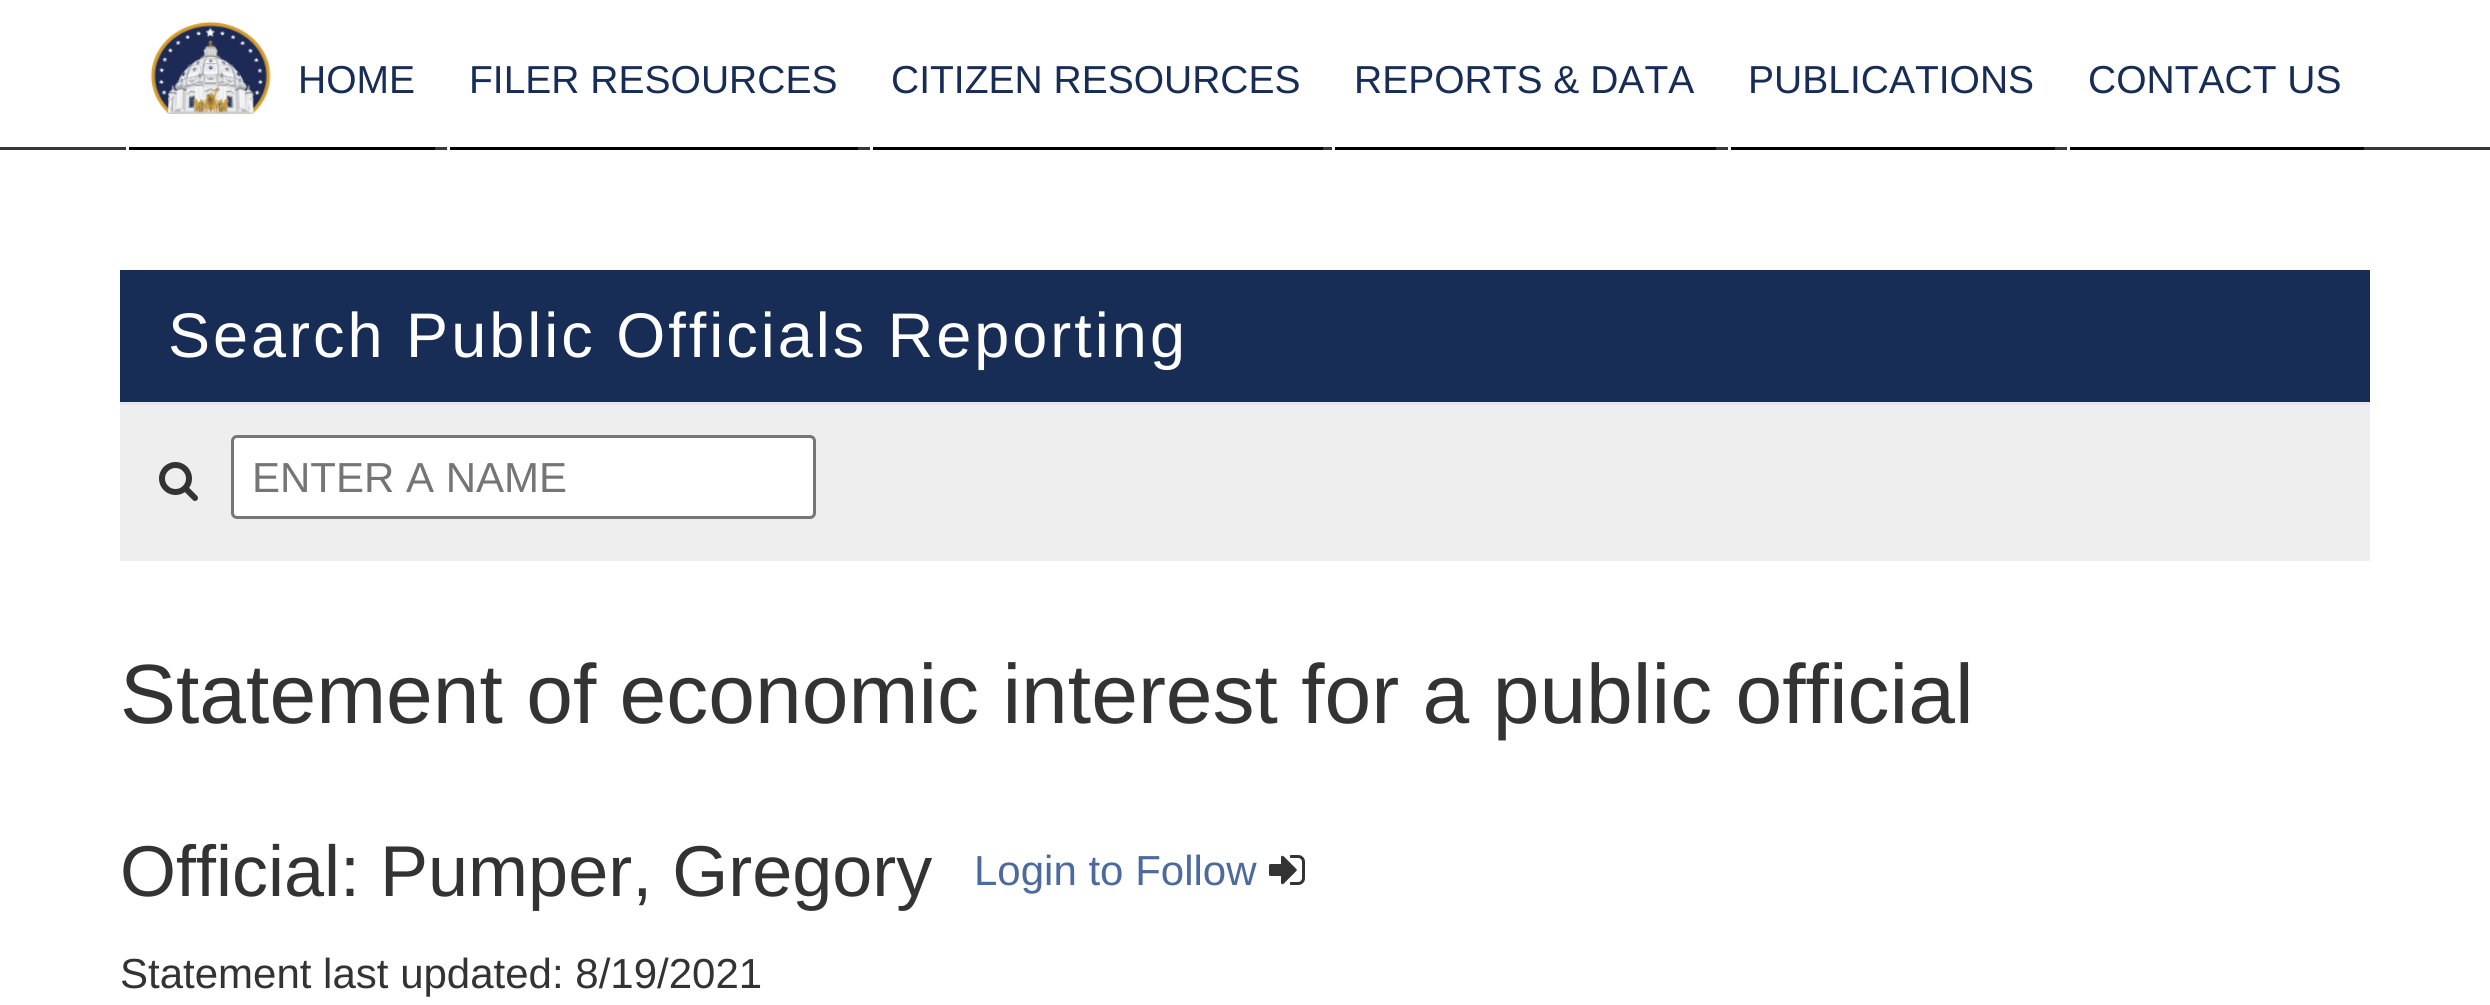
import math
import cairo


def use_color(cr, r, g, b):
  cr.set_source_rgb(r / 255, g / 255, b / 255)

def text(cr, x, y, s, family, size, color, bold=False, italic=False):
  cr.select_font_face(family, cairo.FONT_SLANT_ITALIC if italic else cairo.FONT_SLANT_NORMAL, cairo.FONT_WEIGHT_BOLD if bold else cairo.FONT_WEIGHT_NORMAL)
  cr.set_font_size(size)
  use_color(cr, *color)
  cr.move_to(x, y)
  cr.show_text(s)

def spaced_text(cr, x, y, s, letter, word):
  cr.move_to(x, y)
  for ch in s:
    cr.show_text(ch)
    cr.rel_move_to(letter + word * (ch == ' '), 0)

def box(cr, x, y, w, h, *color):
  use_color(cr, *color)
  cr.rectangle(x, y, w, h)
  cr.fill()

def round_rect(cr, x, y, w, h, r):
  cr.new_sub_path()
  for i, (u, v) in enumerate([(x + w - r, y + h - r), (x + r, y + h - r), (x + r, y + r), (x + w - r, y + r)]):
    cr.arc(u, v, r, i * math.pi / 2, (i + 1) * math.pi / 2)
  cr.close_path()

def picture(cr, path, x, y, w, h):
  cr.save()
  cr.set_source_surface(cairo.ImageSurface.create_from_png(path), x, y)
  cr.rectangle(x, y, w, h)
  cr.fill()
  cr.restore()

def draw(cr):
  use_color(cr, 255, 255, 255)
  cr.paint()
  box(cr, 0, 147, 2490, 3, 55, 55, 55)
  box(cr, 432, 147, 3, 3, 255, 255, 255)
  box(cr, 126, 147, 309, 3, 0, 0, 0)
  box(cr, 126, 147, 3, 3, 255, 255, 255)
  picture(cr, "img_01.png", 150, 21, 121, 93)
  box(cr, 855, 147, 3, 3, 255, 255, 255)
  box(cr, 447, 147, 411, 3, 0, 0, 0)
  box(cr, 447, 147, 3, 3, 255, 255, 255)
  box(cr, 1320, 147, 3, 3, 255, 255, 255)
  box(cr, 870, 147, 453, 3, 0, 0, 0)
  box(cr, 870, 147, 3, 3, 255, 255, 255)
  box(cr, 1713, 147, 3, 3, 255, 255, 255)
  box(cr, 1332, 147, 384, 3, 0, 0, 0)
  box(cr, 1332, 147, 3, 3, 255, 255, 255)
  box(cr, 2052, 147, 3, 3, 255, 255, 255)
  box(cr, 1728, 147, 327, 3, 0, 0, 0)
  box(cr, 1728, 147, 3, 3, 255, 255, 255)
  box(cr, 2361, 147, 3, 3, 255, 255, 255)
  box(cr, 2067, 147, 297, 3, 0, 0, 0)
  box(cr, 2067, 147, 3, 3, 255, 255, 255)
  box(cr, 120, 405, 2250, 156, 238, 238, 238)
  box(cr, 120, 270, 2250, 132, 23, 45, 85)
  box(cr, 120, 402, 2250, 3, 229, 229, 229)
  picture(cr, "img_02.png", 159, 462, 39, 39)
  use_color(cr, 255, 255, 255)
  round_rect(cr, 232.5, 436.5, 582, 81, 4.5)
  cr.fill_preserve()
  use_color(cr, 118, 118, 118)
  cr.set_line_width(3)
  cr.stroke()
  picture(cr, "img_03.png", 1269, 855, 36, 30)
  text(cr, 298, 93, "HOME", "Liberation Sans", 39, (23, 45, 85))
  text(cr, 469, 93, "FILER RESOURCES", "Liberation Sans", 39, (23, 45, 85))
  text(cr, 891, 93, "CITIZEN RESOURCES", "Liberation Sans", 39, (23, 45, 85))
  text(cr, 1354, 93, "REPORTS & DATA", "Liberation Sans", 39, (23, 45, 85))
  text(cr, 1748, 93, "PUBLICATIONS", "Liberation Sans", 39, (23, 45, 85))
  text(cr, 2088, 93, "CONTACT US", "Liberation Sans", 39, (23, 45, 85))
  cr.set_font_size(63)
  use_color(cr, 255, 255, 255)
  spaced_text(cr, 168, 357, "Search Public Officials Reporting", 3, 0)
  text(cr, 252, 492, "ENTER A NAME", "Liberation Sans", 42, (117, 117, 117))
  text(cr, 120, 723, "Statement of economic interest for a public official", "Liberation Sans", 84, (51, 51, 51))
  text(cr, 120, 896, "Official: Pumper, Gregory", "Liberation Sans", 72, (51, 51, 51))
  text(cr, 974, 885, "Login to Follow", "Liberation Sans", 42, (77, 106, 158))
  text(cr, 120, 988, "Statement last updated: 8/19/2021", "Liberation Sans", 42, (51, 51, 51))


surface = cairo.ImageSurface(cairo.FORMAT_RGB24, 2490, 1005)
cr = cairo.Context(surface)
options = cairo.FontOptions()
options.set_hint_metrics(cairo.HINT_METRICS_OFF)
options.set_hint_style(cairo.HINT_STYLE_NONE)
cr.set_font_options(options)
cr.set_miter_limit(4)
draw(cr)
surface.write_to_png("out.png")
